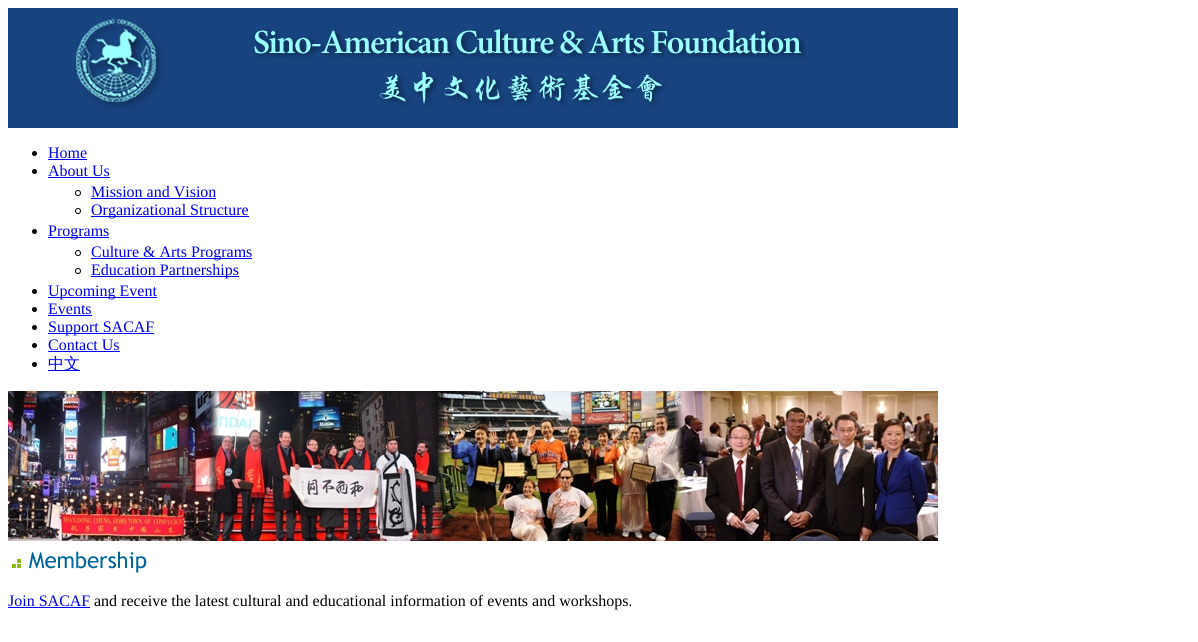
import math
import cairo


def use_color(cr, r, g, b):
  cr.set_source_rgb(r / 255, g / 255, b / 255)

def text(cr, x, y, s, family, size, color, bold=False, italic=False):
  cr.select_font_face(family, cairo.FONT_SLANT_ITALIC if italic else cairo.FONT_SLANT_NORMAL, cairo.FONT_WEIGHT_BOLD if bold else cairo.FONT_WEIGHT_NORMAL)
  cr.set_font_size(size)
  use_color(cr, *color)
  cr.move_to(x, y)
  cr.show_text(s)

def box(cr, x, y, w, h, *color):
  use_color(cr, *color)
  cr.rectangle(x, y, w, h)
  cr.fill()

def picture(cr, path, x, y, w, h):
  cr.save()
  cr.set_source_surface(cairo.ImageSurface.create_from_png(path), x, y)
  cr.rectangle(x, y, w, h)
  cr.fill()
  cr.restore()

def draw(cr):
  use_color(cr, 255, 255, 255)
  cr.paint()
  picture(cr, "img_01.png", 8, 8, 950, 120)
  use_color(cr, 0, 0, 0)
  cr.arc(34.5, 153.5, 2.5, 0, 2 * math.pi)
  cr.fill()
  box(cr, 48, 159, 39, 1, 0, 0, 238)
  use_color(cr, 0, 0, 0)
  cr.arc(34.5, 171.5, 2.5, 0, 2 * math.pi)
  cr.fill()
  box(cr, 48, 177, 62, 1, 0, 0, 238)
  cr.arc(78, 193, 2.5, 0, 2 * math.pi)
  use_color(cr, 0, 0, 0)
  cr.set_line_width(1)
  cr.stroke()
  box(cr, 91, 198, 125, 1, 0, 0, 238)
  cr.arc(78, 211, 2.5, 0, 2 * math.pi)
  use_color(cr, 0, 0, 0)
  cr.stroke()
  box(cr, 91, 216, 158, 1, 0, 0, 238)
  use_color(cr, 0, 0, 0)
  cr.arc(34.5, 231.5, 2.5, 0, 2 * math.pi)
  cr.fill()
  box(cr, 48, 237, 61, 1, 0, 0, 238)
  cr.arc(78, 253, 2.5, 0, 2 * math.pi)
  use_color(cr, 0, 0, 0)
  cr.stroke()
  box(cr, 91, 258, 161, 1, 0, 0, 238)
  cr.arc(78, 271, 2.5, 0, 2 * math.pi)
  use_color(cr, 0, 0, 0)
  cr.stroke()
  box(cr, 91, 276, 148, 1, 0, 0, 238)
  use_color(cr, 0, 0, 0)
  cr.arc(34.5, 291.5, 2.5, 0, 2 * math.pi)
  cr.fill()
  box(cr, 48, 297, 109, 1, 0, 0, 238)
  use_color(cr, 0, 0, 0)
  cr.arc(34.5, 309.5, 2.5, 0, 2 * math.pi)
  cr.fill()
  box(cr, 48, 315, 44, 1, 0, 0, 238)
  use_color(cr, 0, 0, 0)
  cr.arc(34.5, 327.5, 2.5, 0, 2 * math.pi)
  cr.fill()
  box(cr, 48, 333, 106, 1, 0, 0, 238)
  use_color(cr, 0, 0, 0)
  cr.arc(34.5, 345.5, 2.5, 0, 2 * math.pi)
  cr.fill()
  box(cr, 48, 351, 72, 1, 0, 0, 238)
  use_color(cr, 0, 0, 0)
  cr.arc(34.5, 364.5, 2.5, 0, 2 * math.pi)
  cr.fill()
  box(cr, 48, 370, 32, 1, 0, 0, 238)
  picture(cr, "img_02.png", 8, 391, 930, 150)
  picture(cr, "img_03.png", 12, 551, 135, 22)
  box(cr, 8, 607, 82, 1, 0, 0, 238)
  text(cr, 48, 158, "Home", "Liberation Serif", 16, (0, 0, 238))
  text(cr, 48, 176, "About Us", "Liberation Serif", 16, (0, 0, 238))
  text(cr, 91, 197, "Mission and Vision", "Liberation Serif", 16, (0, 0, 238))
  text(cr, 91, 215, "Organizational Structure", "Liberation Serif", 16, (0, 0, 238))
  text(cr, 48, 236, "Programs", "Liberation Serif", 16, (0, 0, 238))
  text(cr, 91, 257, "Culture & Arts Programs", "Liberation Serif", 16, (0, 0, 238))
  text(cr, 91, 275, "Education Partnerships", "Liberation Serif", 16, (0, 0, 238))
  text(cr, 48, 296, "Upcoming Event", "Liberation Serif", 16, (0, 0, 238))
  text(cr, 48, 314, "Events", "Liberation Serif", 16, (0, 0, 238))
  text(cr, 48, 332, "Support SACAF", "Liberation Serif", 16, (0, 0, 238))
  text(cr, 48, 350, "Contact Us", "Liberation Serif", 16, (0, 0, 238))
  text(cr, 48, 369, "中文", "WenQuanYi Zen Hei Medium", 16, (0, 0, 238))
  text(cr, 8, 606, "Join SACAF", "Liberation Serif", 16, (0, 0, 238))
  text(cr, 94, 606, "and receive the latest cultural and educational information of events and workshops.", "Liberation Serif", 16, (0, 0, 0))


surface = cairo.ImageSurface(cairo.FORMAT_RGB24, 1198, 642)
cr = cairo.Context(surface)
options = cairo.FontOptions()
options.set_hint_metrics(cairo.HINT_METRICS_OFF)
options.set_hint_style(cairo.HINT_STYLE_NONE)
cr.set_font_options(options)
cr.set_miter_limit(4)
draw(cr)
surface.write_to_png("out.png")
